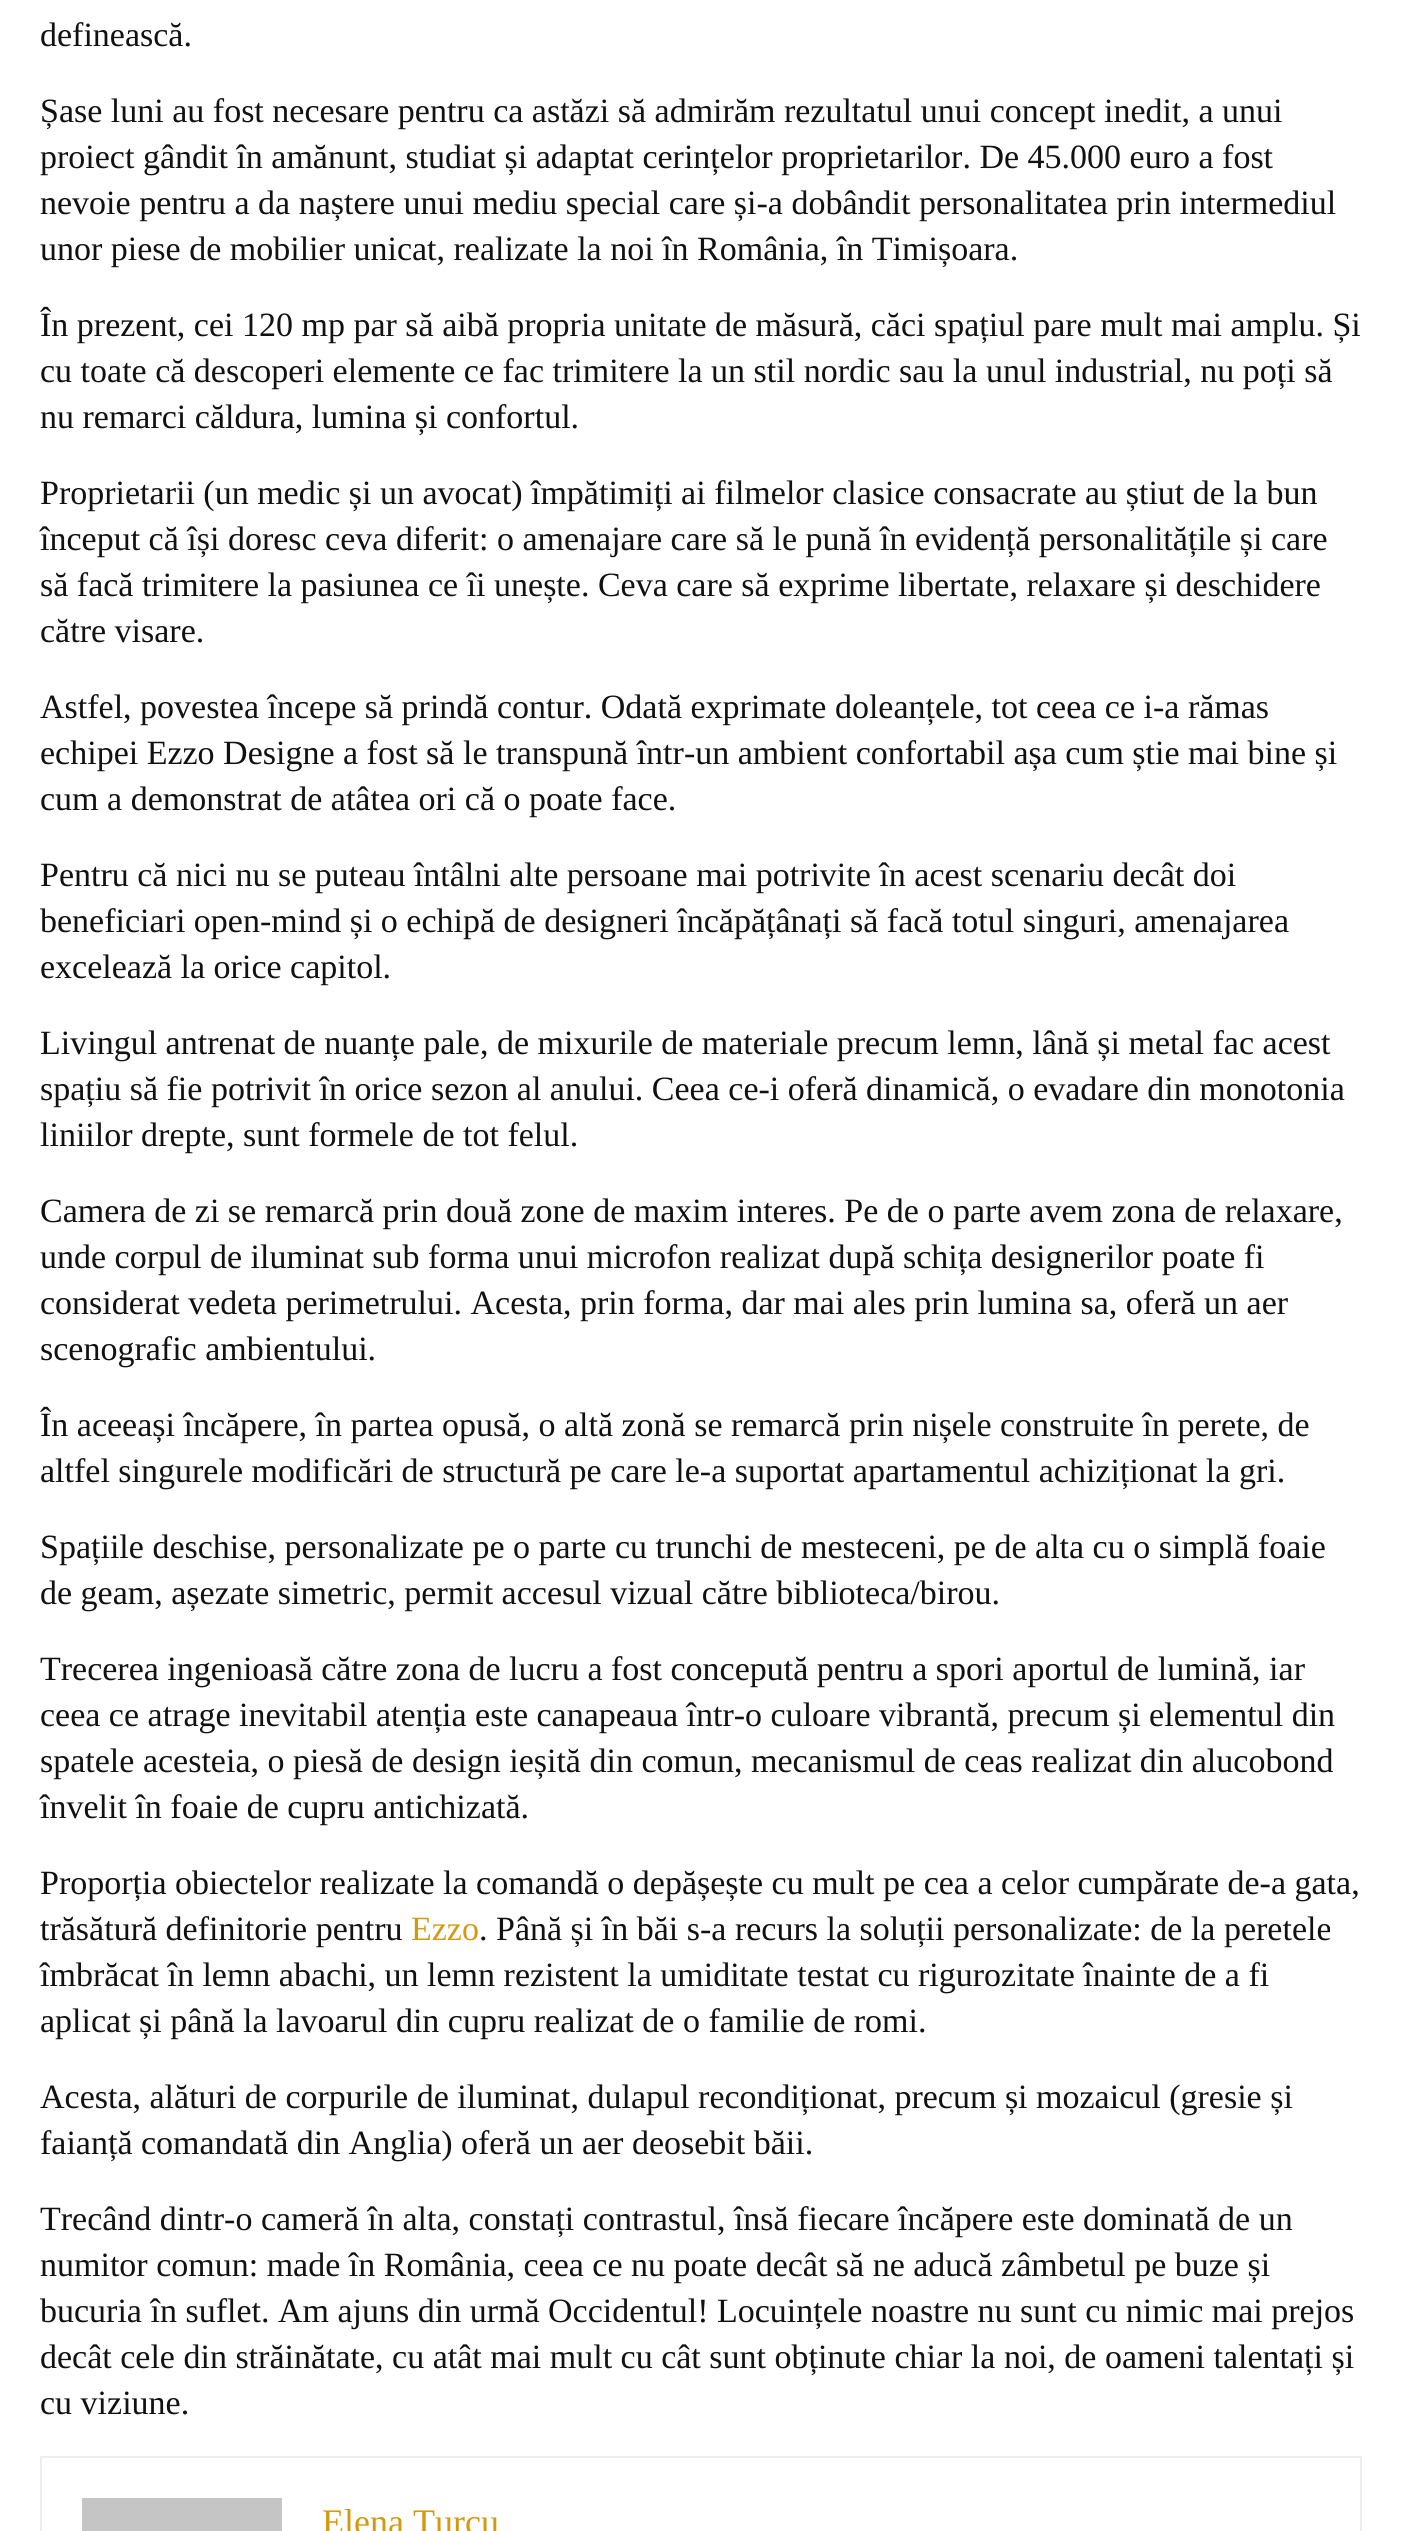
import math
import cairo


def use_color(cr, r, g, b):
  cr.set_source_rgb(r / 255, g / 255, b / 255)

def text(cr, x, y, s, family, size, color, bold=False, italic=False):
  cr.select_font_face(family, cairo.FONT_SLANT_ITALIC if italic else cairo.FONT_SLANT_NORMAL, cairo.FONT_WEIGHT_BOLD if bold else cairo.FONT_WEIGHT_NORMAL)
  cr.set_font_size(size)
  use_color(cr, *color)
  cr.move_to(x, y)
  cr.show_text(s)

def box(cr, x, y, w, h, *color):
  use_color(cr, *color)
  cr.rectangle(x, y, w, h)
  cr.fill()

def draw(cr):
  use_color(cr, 255, 255, 255)
  cr.paint()
  cr.rectangle(41, 2457, 1320, 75)
  use_color(cr, 238, 238, 238)
  cr.stroke()
  box(cr, 82, 2498, 200, 33, 197, 197, 197)
  text(cr, 40, 46, "definească.", "Liberation Serif", 34, (17, 17, 17))
  text(cr, 40, 122, "Șase luni au fost necesare pentru ca astăzi să admirăm rezultatul unui concept inedit, a unui", "Liberation Serif", 34, (17, 17, 17))
  text(cr, 40, 168, "proiect gândit în amănunt, studiat și adaptat cerințelor proprietarilor. De 45.000 euro a fost", "Liberation Serif", 34, (17, 17, 17))
  text(cr, 40, 214, "nevoie pentru a da naștere unui mediu special care și-a dobândit personalitatea prin intermediul", "Liberation Serif", 34, (17, 17, 17))
  text(cr, 40, 260, "unor piese de mobilier unicat, realizate la noi în România, în Timișoara.", "Liberation Serif", 34, (17, 17, 17))
  text(cr, 40, 336, "În prezent, cei 120 mp par să aibă propria unitate de măsură, căci spațiul pare mult mai amplu. Și", "Liberation Serif", 34, (17, 17, 17))
  text(cr, 40, 382, "cu toate că descoperi elemente ce fac trimitere la un stil nordic sau la unul industrial, nu poți să", "Liberation Serif", 34, (17, 17, 17))
  text(cr, 40, 428, "nu remarci căldura, lumina și confortul.", "Liberation Serif", 34, (17, 17, 17))
  text(cr, 40, 504, "Proprietarii (un medic și un avocat) împătimiți ai filmelor clasice consacrate au știut de la bun", "Liberation Serif", 34, (17, 17, 17))
  text(cr, 40, 550, "început că își doresc ceva diferit: o amenajare care să le pună în evidență personalitățile și care", "Liberation Serif", 34, (17, 17, 17))
  text(cr, 40, 596, "să facă trimitere la pasiunea ce îi unește. Ceva care să exprime libertate, relaxare și deschidere", "Liberation Serif", 34, (17, 17, 17))
  text(cr, 40, 642, "către visare.", "Liberation Serif", 34, (17, 17, 17))
  text(cr, 40, 718, "Astfel, povestea începe să prindă contur. Odată exprimate doleanțele, tot ceea ce i-a rămas", "Liberation Serif", 34, (17, 17, 17))
  text(cr, 40, 764, "echipei Ezzo Designe a fost să le transpună într-un ambient confortabil așa cum știe mai bine și", "Liberation Serif", 34, (17, 17, 17))
  text(cr, 40, 810, "cum a demonstrat de atâtea ori că o poate face.", "Liberation Serif", 34, (17, 17, 17))
  text(cr, 40, 886, "Pentru că nici nu se puteau întâlni alte persoane mai potrivite în acest scenariu decât doi", "Liberation Serif", 34, (17, 17, 17))
  text(cr, 40, 932, "beneficiari open-mind și o echipă de designeri încăpățânați să facă totul singuri, amenajarea", "Liberation Serif", 34, (17, 17, 17))
  text(cr, 40, 978, "excelează la orice capitol.", "Liberation Serif", 34, (17, 17, 17))
  text(cr, 40, 1054, "Livingul antrenat de nuanțe pale, de mixurile de materiale precum lemn, lână și metal fac acest", "Liberation Serif", 34, (17, 17, 17))
  text(cr, 40, 1100, "spațiu să fie potrivit în orice sezon al anului. Ceea ce-i oferă dinamică, o evadare din monotonia", "Liberation Serif", 34, (17, 17, 17))
  text(cr, 40, 1146, "liniilor drepte, sunt formele de tot felul.", "Liberation Serif", 34, (17, 17, 17))
  text(cr, 40, 1222, "Camera de zi se remarcă prin două zone de maxim interes. Pe de o parte avem zona de relaxare,", "Liberation Serif", 34, (17, 17, 17))
  text(cr, 40, 1268, "unde corpul de iluminat sub forma unui microfon realizat după schița designerilor poate fi", "Liberation Serif", 34, (17, 17, 17))
  text(cr, 40, 1314, "considerat vedeta perimetrului. Acesta, prin forma, dar mai ales prin lumina sa, oferă un aer", "Liberation Serif", 34, (17, 17, 17))
  text(cr, 40, 1360, "scenografic ambientului.", "Liberation Serif", 34, (17, 17, 17))
  text(cr, 40, 1436, "În aceeași încăpere, în partea opusă, o altă zonă se remarcă prin nișele construite în perete, de", "Liberation Serif", 34, (17, 17, 17))
  text(cr, 40, 1482, "altfel singurele modificări de structură pe care le-a suportat apartamentul achiziționat la gri.", "Liberation Serif", 34, (17, 17, 17))
  text(cr, 40, 1558, "Spațiile deschise, personalizate pe o parte cu trunchi de mesteceni, pe de alta cu o simplă foaie", "Liberation Serif", 34, (17, 17, 17))
  text(cr, 40, 1604, "de geam, așezate simetric, permit accesul vizual către biblioteca/birou.", "Liberation Serif", 34, (17, 17, 17))
  text(cr, 40, 1680, "Trecerea ingenioasă către zona de lucru a fost concepută pentru a spori aportul de lumină, iar", "Liberation Serif", 34, (17, 17, 17))
  text(cr, 40, 1726, "ceea ce atrage inevitabil atenția este canapeaua într-o culoare vibrantă, precum și elementul din", "Liberation Serif", 34, (17, 17, 17))
  text(cr, 40, 1772, "spatele acesteia, o piesă de design ieșită din comun, mecanismul de ceas realizat din alucobond", "Liberation Serif", 34, (17, 17, 17))
  text(cr, 40, 1818, "învelit în foaie de cupru antichizată.", "Liberation Serif", 34, (17, 17, 17))
  text(cr, 40, 1894, "Proporția obiectelor realizate la comandă o depășește cu mult pe cea a celor cumpărate de-a gata,", "Liberation Serif", 34, (17, 17, 17))
  text(cr, 40, 1940, "trăsătură definitorie pentru", "Liberation Serif", 34, (17, 17, 17))
  text(cr, 411, 1940, "Ezzo", "Liberation Serif", 34, (212, 153, 17))
  text(cr, 479, 1940, ". Până și în băi s-a recurs la soluții personalizate: de la peretele", "Liberation Serif", 34, (17, 17, 17))
  text(cr, 40, 1986, "îmbrăcat în lemn abachi, un lemn rezistent la umiditate testat cu rigurozitate înainte de a fi", "Liberation Serif", 34, (17, 17, 17))
  text(cr, 40, 2032, "aplicat și până la lavoarul din cupru realizat de o familie de romi.", "Liberation Serif", 34, (17, 17, 17))
  text(cr, 40, 2108, "Acesta, alături de corpurile de iluminat, dulapul recondiționat, precum și mozaicul (gresie și", "Liberation Serif", 34, (17, 17, 17))
  text(cr, 40, 2154, "faianță comandată din Anglia) oferă un aer deosebit băii.", "Liberation Serif", 34, (17, 17, 17))
  text(cr, 40, 2230, "Trecând dintr-o cameră în alta, constați contrastul, însă fiecare încăpere este dominată de un", "Liberation Serif", 34, (17, 17, 17))
  text(cr, 40, 2276, "numitor comun: made în România, ceea ce nu poate decât să ne aducă zâmbetul pe buze și", "Liberation Serif", 34, (17, 17, 17))
  text(cr, 40, 2322, "bucuria în suflet. Am ajuns din urmă Occidentul! Locuințele noastre nu sunt cu nimic mai prejos", "Liberation Serif", 34, (17, 17, 17))
  text(cr, 40, 2368, "decât cele din străinătate, cu atât mai mult cu cât sunt obținute chiar la noi, de oameni talentați și", "Liberation Serif", 34, (17, 17, 17))
  text(cr, 40, 2414, "cu viziune.", "Liberation Serif", 34, (17, 17, 17))
  text(cr, 322, 2534, "Elena Turcu", "Liberation Serif", 36, (212, 153, 17))


surface = cairo.ImageSurface(cairo.FORMAT_RGB24, 1402, 2531)
cr = cairo.Context(surface)
options = cairo.FontOptions()
options.set_hint_metrics(cairo.HINT_METRICS_OFF)
options.set_hint_style(cairo.HINT_STYLE_NONE)
cr.set_font_options(options)
cr.set_miter_limit(4)
draw(cr)
surface.write_to_png("out.png")
